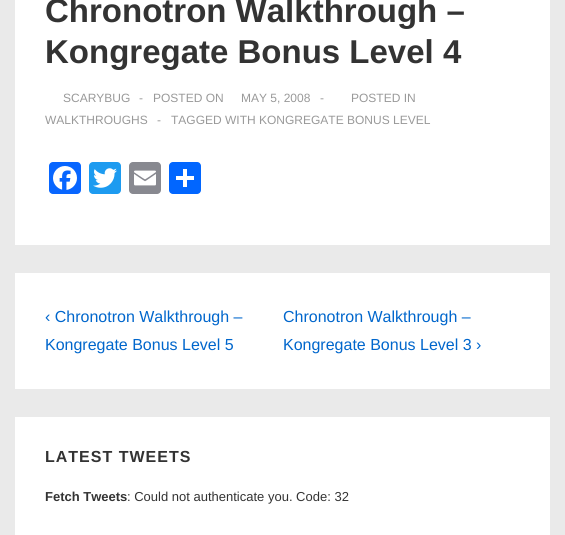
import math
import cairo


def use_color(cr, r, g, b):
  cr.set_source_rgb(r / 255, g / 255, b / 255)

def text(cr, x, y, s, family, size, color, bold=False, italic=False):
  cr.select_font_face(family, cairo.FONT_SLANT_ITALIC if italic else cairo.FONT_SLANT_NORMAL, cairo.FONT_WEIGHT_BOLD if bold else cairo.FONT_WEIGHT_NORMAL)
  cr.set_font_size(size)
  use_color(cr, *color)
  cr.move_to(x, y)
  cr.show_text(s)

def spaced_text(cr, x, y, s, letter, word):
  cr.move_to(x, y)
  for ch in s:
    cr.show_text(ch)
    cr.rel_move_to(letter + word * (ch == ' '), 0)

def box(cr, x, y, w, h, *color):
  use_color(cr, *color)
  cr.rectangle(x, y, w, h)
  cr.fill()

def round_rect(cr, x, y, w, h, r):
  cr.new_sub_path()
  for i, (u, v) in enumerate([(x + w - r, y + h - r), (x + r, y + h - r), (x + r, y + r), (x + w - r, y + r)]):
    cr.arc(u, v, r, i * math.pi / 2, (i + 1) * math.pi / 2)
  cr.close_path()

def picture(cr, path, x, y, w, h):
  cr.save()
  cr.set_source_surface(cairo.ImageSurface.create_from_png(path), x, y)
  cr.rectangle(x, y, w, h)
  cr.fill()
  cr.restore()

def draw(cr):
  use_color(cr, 234, 234, 234)
  cr.paint()
  box(cr, 15, 0, 535, 245, 255, 255, 255)
  use_color(cr, 8, 102, 255)
  round_rect(cr, 49, 162, 32, 32, 4)
  cr.fill()
  picture(cr, "img_01.png", 53, 166, 24, 24)
  use_color(cr, 29, 155, 240)
  round_rect(cr, 89, 162, 32, 32, 4)
  cr.fill()
  picture(cr, "img_02.png", 93, 168, 24, 20)
  use_color(cr, 136, 137, 144)
  round_rect(cr, 129, 162, 32, 32, 4)
  cr.fill()
  picture(cr, "img_03.png", 134, 170, 22, 16)
  use_color(cr, 1, 102, 255)
  round_rect(cr, 169, 162, 32, 32, 4)
  cr.fill()
  box(cr, 183, 169, 4, 18, 255, 255, 255)
  box(cr, 176, 176, 18, 4, 255, 255, 255)
  box(cr, 15, 273, 535, 116, 255, 255, 255)
  box(cr, 15, 417, 535, 118, 255, 255, 255)
  text(cr, 45, 22, "Chronotron Walkthrough –", "Liberation Sans", 33, (51, 51, 51), bold=True)
  text(cr, 45, 63, "Kongregate Bonus Level 4", "Liberation Sans", 33, (51, 51, 51), bold=True)
  text(cr, 63, 102, "SCARYBUG", "Liberation Sans", 12, (153, 153, 153))
  text(cr, 139, 102, "-", "Liberation Sans", 12, (153, 153, 153))
  text(cr, 153, 102, "POSTED ON", "Liberation Sans", 12, (153, 153, 153))
  text(cr, 241, 102, "MAY 5, 2008", "Liberation Sans", 12, (153, 153, 153))
  text(cr, 320, 102, "-", "Liberation Sans", 12, (153, 153, 153))
  text(cr, 351, 102, "POSTED IN", "Liberation Sans", 12, (153, 153, 153))
  text(cr, 45, 124, "WALKTHROUGHS", "Liberation Sans", 12, (153, 153, 153))
  text(cr, 157, 124, "-", "Liberation Sans", 12, (153, 153, 153))
  text(cr, 171, 124, "TAGGED WITH KONGREGATE BONUS LEVEL", "Liberation Sans", 12, (153, 153, 153))
  text(cr, 45, 322, "‹ Chronotron Walkthrough –", "Liberation Sans", 16, (0, 102, 204))
  text(cr, 45, 350, "Kongregate Bonus Level 5", "Liberation Sans", 16, (0, 102, 204))
  text(cr, 283, 322, "Chronotron Walkthrough –", "Liberation Sans", 16, (0, 102, 204))
  text(cr, 283, 350, "Kongregate Bonus Level 3 ›", "Liberation Sans", 16, (0, 102, 204))
  cr.select_font_face("Liberation Sans", cairo.FONT_SLANT_NORMAL, cairo.FONT_WEIGHT_BOLD)
  use_color(cr, 51, 51, 51)
  spaced_text(cr, 45, 462, "LATEST TWEETS", 1, 0)
  text(cr, 45, 501, "Fetch Tweets", "Liberation Sans", 13, (51, 51, 51), bold=True)
  text(cr, 127, 501, ": Could not authenticate you. Code: 32", "Liberation Sans", 13, (51, 51, 51))


surface = cairo.ImageSurface(cairo.FORMAT_RGB24, 565, 535)
cr = cairo.Context(surface)
options = cairo.FontOptions()
options.set_hint_metrics(cairo.HINT_METRICS_OFF)
options.set_hint_style(cairo.HINT_STYLE_NONE)
cr.set_font_options(options)
cr.set_miter_limit(4)
draw(cr)
surface.write_to_png("out.png")
